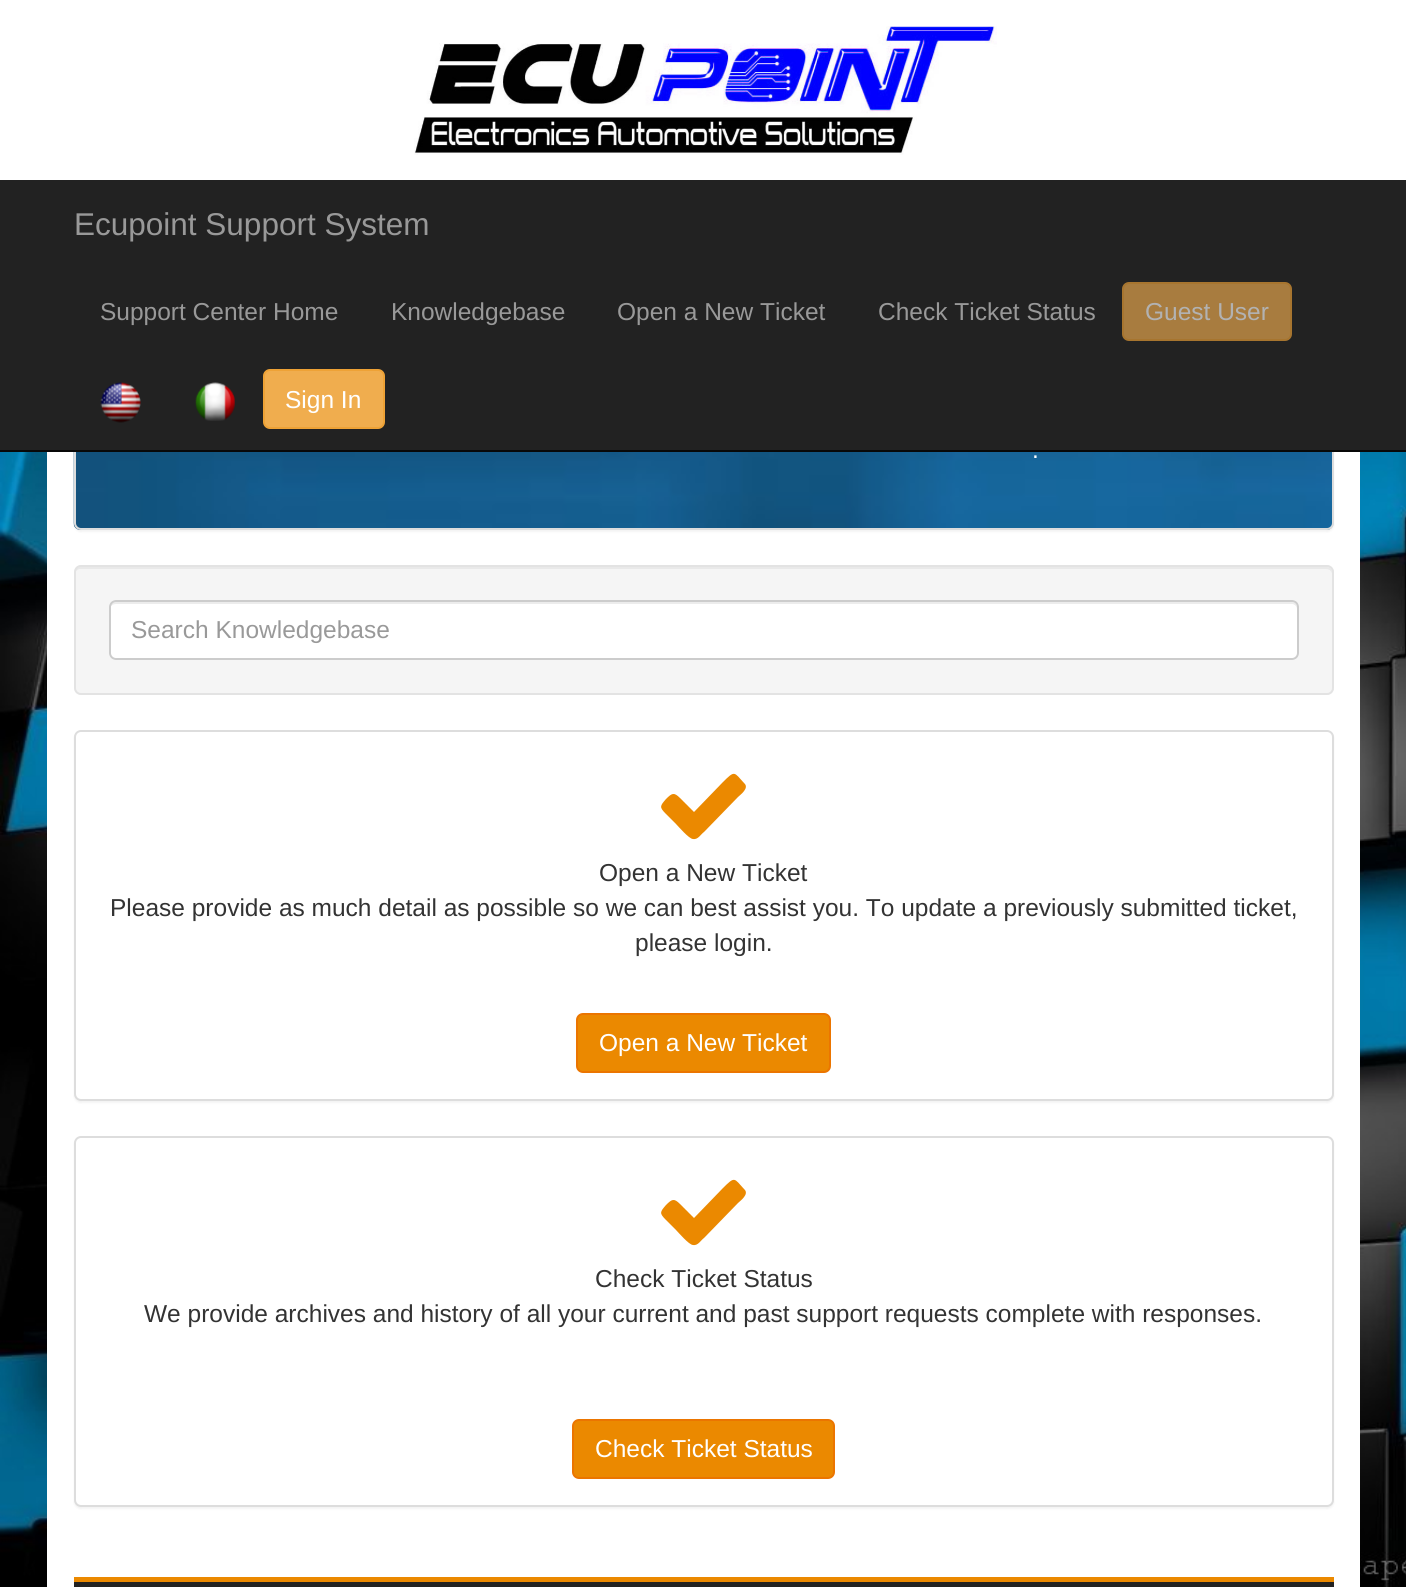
import math
import cairo


def use_color(cr, r, g, b):
  cr.set_source_rgb(r / 255, g / 255, b / 255)

def text(cr, x, y, s, family, size, color, bold=False, italic=False):
  cr.select_font_face(family, cairo.FONT_SLANT_ITALIC if italic else cairo.FONT_SLANT_NORMAL, cairo.FONT_WEIGHT_BOLD if bold else cairo.FONT_WEIGHT_NORMAL)
  cr.set_font_size(size)
  use_color(cr, *color)
  cr.move_to(x, y)
  cr.show_text(s)

def box(cr, x, y, w, h, *color):
  use_color(cr, *color)
  cr.rectangle(x, y, w, h)
  cr.fill()

def round_rect(cr, x, y, w, h, r):
  cr.new_sub_path()
  for i, (u, v) in enumerate([(x + w - r, y + h - r), (x + r, y + h - r), (x + r, y + r), (x + w - r, y + r)]):
    cr.arc(u, v, r, i * math.pi / 2, (i + 1) * math.pi / 2)
  cr.close_path()

def shadow(cr, x, y, w, h, r, blur, alpha):
  cr.push_group_with_content(cairo.CONTENT_ALPHA)
  cr.set_operator(cairo.OPERATOR_SOURCE)
  for i in range(15, -16, -2):
    e = blur * i / 6
    if min(w, h) + 2 * e > 0:
      cr.set_source_rgba(0, 0, 0, alpha * math.erfc((i - 1) / 8.5) / 2)
      round_rect(cr, x - e, y - e, w + 2 * e, h + 2 * e, max(0, min(r + e + blur * .6, min(w, h) / 2 + e)))
      cr.fill()
  cr.mask(cr.pop_group())

def picture(cr, path, x, y, w, h):
  cr.save()
  cr.set_source_surface(cairo.ImageSurface.create_from_png(path), x, y)
  cr.rectangle(x, y, w, h)
  cr.fill()
  cr.restore()

def draw(cr):
  use_color(cr, 255, 255, 255)
  cr.paint()
  picture(cr, "img_01.png", 0, 452, 1406, 1135)
  box(cr, 47, 452, 1313, 1135, 255, 255, 255)
  use_color(cr, 0, 0, 0)
  shadow(cr, 74, -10, 1260, 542, 7, 1, 0.05)
  picture(cr, "img_05.png", 73, 452, 1261, 78)
  round_rect(cr, 75, -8, 1258, 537, 6)
  use_color(cr, 221, 221, 221)
  cr.stroke()
  box(cr, 0, 180, 1406, 270, 34, 34, 34)
  box(cr, 0, 450, 1406, 2, 8, 8, 8)
  box(cr, 73, 0, 1262, 180, 255, 255, 255)
  picture(cr, "img_02.png", 414, 26, 583, 129)
  use_color(cr, 168, 124, 63)
  round_rect(cr, 1123, 283, 168, 57, 6)
  cr.fill_preserve()
  use_color(cr, 167, 117, 47)
  cr.stroke()
  picture(cr, "img_03.png", 100, 382, 41, 41)
  picture(cr, "img_04.png", 195, 382, 40, 39)
  use_color(cr, 240, 173, 78)
  round_rect(cr, 264, 370, 120, 58, 6)
  cr.fill_preserve()
  use_color(cr, 238, 162, 54)
  cr.stroke()
  use_color(cr, 245, 245, 245)
  round_rect(cr, 74, 565, 1260, 130, 7)
  cr.fill()
  use_color(cr, 233, 233, 233)
  cr.new_path()
  cr.move_to(80, 569)
  cr.line_to(1326, 569)
  cr.curve_to(1329, 569, 1332, 571, 1332, 574)
  cr.line_to(1332, 572)
  cr.curve_to(1332, 569, 1330, 567, 1327, 567)
  cr.line_to(80, 567)
  cr.curve_to(77, 567, 75, 569, 75, 572)
  cr.line_to(75, 574)
  cr.curve_to(75, 571, 78, 569, 80, 569)
  cr.close_path()
  cr.fill()
  round_rect(cr, 75, 566, 1258, 128, 6)
  use_color(cr, 227, 227, 227)
  cr.stroke()
  use_color(cr, 255, 255, 255)
  round_rect(cr, 109, 600, 1190, 60, 7)
  cr.fill()
  use_color(cr, 236, 236, 236)
  cr.new_path()
  cr.move_to(116, 604)
  cr.line_to(1292, 604)
  cr.curve_to(1294, 604, 1297, 606, 1297, 609)
  cr.line_to(1297, 607)
  cr.curve_to(1297, 604, 1295, 602, 1292, 602)
  cr.line_to(115, 602)
  cr.curve_to(112, 602, 110, 604, 110, 607)
  cr.line_to(110, 609)
  cr.curve_to(110, 606, 113, 604, 116, 604)
  cr.close_path()
  cr.fill()
  round_rect(cr, 110, 601, 1188, 58, 6)
  use_color(cr, 204, 204, 204)
  cr.stroke()
  use_color(cr, 0, 0, 0)
  shadow(cr, 74, 732, 1260, 371, 7, 1, 0.05)
  use_color(cr, 255, 255, 255)
  round_rect(cr, 75, 731, 1258, 369, 6)
  cr.fill_preserve()
  use_color(cr, 221, 221, 221)
  cr.stroke()
  use_color(cr, 235, 137, 0)
  cr.new_path()
  cr.move_to(744, 783)
  cr.curve_to(750, 788, 740, 795, 738, 797)
  cr.line_to(704, 832)
  cr.curve_to(701, 834, 698, 840, 693, 839)
  cr.curve_to(689, 839, 678, 826, 676, 824)
  cr.line_to(666, 814)
  cr.curve_to(659, 807, 660, 806, 666, 799)
  cr.curve_to(672, 793, 674, 792, 680, 798)
  cr.line_to(694, 812)
  cr.line_to(723, 782)
  cr.curve_to(735, 770, 734, 772, 744, 783)
  cr.close_path()
  cr.fill()
  round_rect(cr, 577, 1014, 253, 58, 6)
  cr.fill_preserve()
  use_color(cr, 235, 117, 0)
  cr.stroke()
  use_color(cr, 0, 0, 0)
  shadow(cr, 74, 1138, 1260, 371, 7, 1, 0.05)
  use_color(cr, 255, 255, 255)
  round_rect(cr, 75, 1137, 1258, 369, 6)
  cr.fill_preserve()
  use_color(cr, 221, 221, 221)
  cr.stroke()
  use_color(cr, 235, 137, 0)
  cr.new_path()
  cr.move_to(744, 1189)
  cr.curve_to(750, 1194, 740, 1201, 738, 1203)
  cr.line_to(704, 1238)
  cr.curve_to(701, 1240, 698, 1246, 693, 1245)
  cr.curve_to(689, 1245, 678, 1232, 676, 1230)
  cr.line_to(666, 1220)
  cr.curve_to(659, 1213, 660, 1212, 666, 1205)
  cr.curve_to(672, 1199, 674, 1198, 680, 1204)
  cr.line_to(694, 1218)
  cr.line_to(723, 1188)
  cr.curve_to(735, 1176, 734, 1178, 744, 1189)
  cr.close_path()
  cr.fill()
  round_rect(cr, 573, 1420, 261, 58, 6)
  cr.fill_preserve()
  use_color(cr, 235, 117, 0)
  cr.stroke()
  box(cr, 74, 1582, 1260, 5, 34, 34, 34)
  box(cr, 74, 1577, 1260, 5, 235, 137, 0)
  text(cr, 74, 235, "Ecupoint Support System", "Liberation Sans", 31.5, (153, 153, 153))
  text(cr, 100, 320, "Support Center Home", "Liberation Sans", 24.5, (153, 153, 153))
  text(cr, 391, 320, "Knowledgebase", "Liberation Sans", 24.5, (153, 153, 153))
  text(cr, 617, 320, "Open a New Ticket", "Liberation Sans", 24.5, (153, 153, 153))
  text(cr, 878, 320, "Check Ticket Status", "Liberation Sans", 24.5, (153, 153, 153))
  text(cr, 1145, 320, "Guest User", "Liberation Sans", 24.5, (178, 178, 178))
  text(cr, 285, 408, "Sign In", "Liberation Sans", 24.5, (255, 255, 255))
  text(cr, 1032, 458, ".", "Liberation Sans", 24.5, (255, 255, 255))
  text(cr, 131, 638, "Search Knowledgebase", "Liberation Sans", 24.5, (153, 153, 153))
  text(cr, 599, 881, "Open a New Ticket", "Liberation Sans", 24.5, (51, 51, 51))
  text(cr, 110, 916, "Please provide as much detail as possible so we can best assist you. To update a previously submitted ticket,", "Liberation Sans", 24.5, (51, 51, 51))
  text(cr, 635, 951, "please login.", "Liberation Sans", 24.5, (51, 51, 51))
  text(cr, 599, 1051, "Open a New Ticket", "Liberation Sans", 24.5, (255, 255, 255))
  text(cr, 595, 1287, "Check Ticket Status", "Liberation Sans", 24.5, (51, 51, 51))
  text(cr, 144, 1322, "We provide archives and history of all your current and past support requests complete with responses.", "Liberation Sans", 24.5, (51, 51, 51))
  text(cr, 595, 1457, "Check Ticket Status", "Liberation Sans", 24.5, (255, 255, 255))


surface = cairo.ImageSurface(cairo.FORMAT_RGB24, 1406, 1587)
cr = cairo.Context(surface)
options = cairo.FontOptions()
options.set_hint_metrics(cairo.HINT_METRICS_OFF)
options.set_hint_style(cairo.HINT_STYLE_NONE)
cr.set_font_options(options)
cr.set_miter_limit(4)
draw(cr)
surface.write_to_png("out.png")
